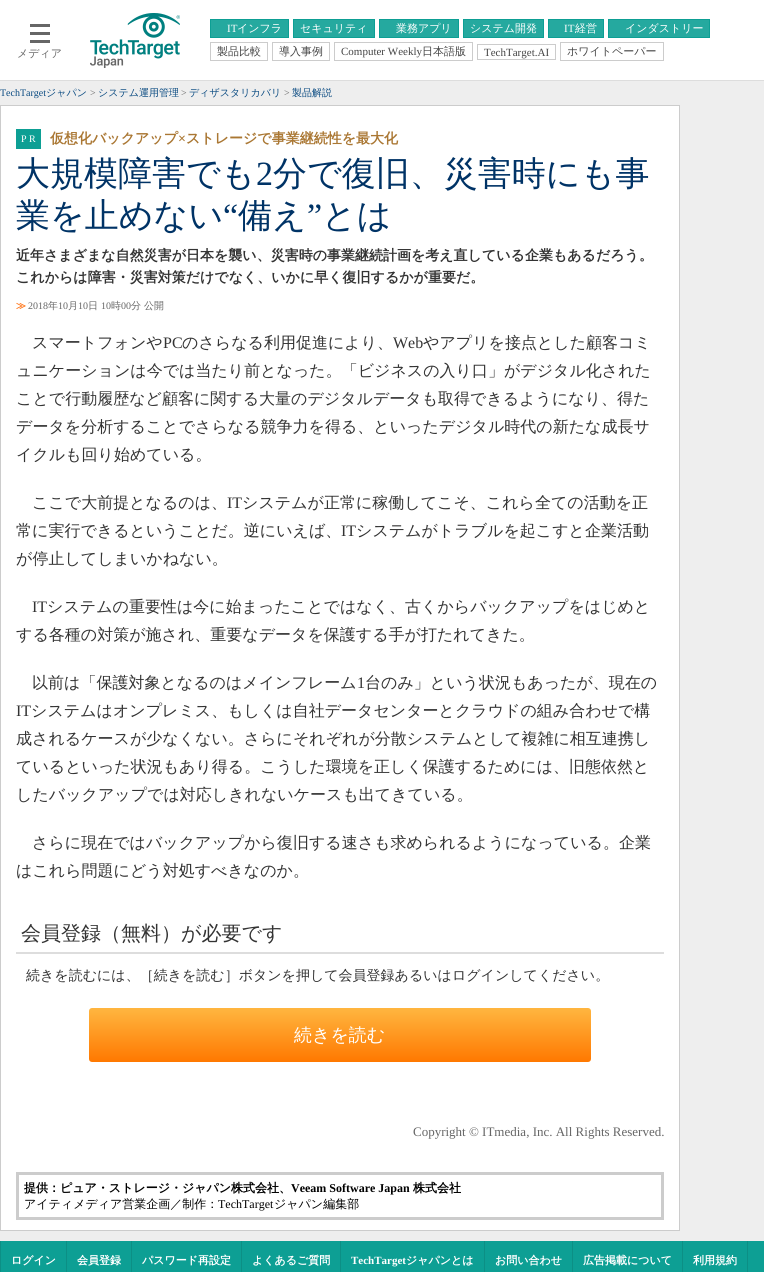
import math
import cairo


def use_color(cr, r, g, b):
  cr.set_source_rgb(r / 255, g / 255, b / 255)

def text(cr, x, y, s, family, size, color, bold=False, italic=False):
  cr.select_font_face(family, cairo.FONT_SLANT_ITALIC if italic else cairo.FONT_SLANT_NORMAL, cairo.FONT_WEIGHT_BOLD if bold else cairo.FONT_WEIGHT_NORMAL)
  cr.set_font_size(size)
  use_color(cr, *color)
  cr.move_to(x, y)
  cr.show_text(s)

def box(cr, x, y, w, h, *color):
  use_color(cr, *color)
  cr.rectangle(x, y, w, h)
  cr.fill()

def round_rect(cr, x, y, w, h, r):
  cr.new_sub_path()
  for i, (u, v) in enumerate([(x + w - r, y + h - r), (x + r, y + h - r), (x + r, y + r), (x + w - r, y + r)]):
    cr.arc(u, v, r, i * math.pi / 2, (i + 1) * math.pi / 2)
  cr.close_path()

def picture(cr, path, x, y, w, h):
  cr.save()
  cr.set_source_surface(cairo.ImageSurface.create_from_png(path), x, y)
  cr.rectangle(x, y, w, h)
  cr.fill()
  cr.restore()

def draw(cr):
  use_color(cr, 255, 255, 255)
  cr.paint()
  box(cr, 0, 80, 764, 1, 221, 221, 221)
  box(cr, 30, 24, 20, 3, 102, 102, 102)
  box(cr, 30, 32, 20, 3, 102, 102, 102)
  box(cr, 30, 40, 20, 3, 102, 102, 102)
  picture(cr, "img_01.png", 90, 13, 90, 55)
  use_color(cr, 37, 169, 159)
  cr.rectangle(210.5, 19.5, 78, 18)
  cr.fill_preserve()
  use_color(cr, 13, 159, 148)
  cr.set_line_width(1)
  cr.stroke()
  use_color(cr, 37, 169, 159)
  cr.rectangle(293.5, 19.5, 81, 18)
  cr.fill_preserve()
  use_color(cr, 13, 159, 148)
  cr.stroke()
  use_color(cr, 37, 169, 159)
  cr.rectangle(379.5, 19.5, 79, 18)
  cr.fill_preserve()
  use_color(cr, 13, 159, 148)
  cr.stroke()
  use_color(cr, 37, 169, 159)
  cr.rectangle(463.5, 19.5, 80, 18)
  cr.fill_preserve()
  use_color(cr, 13, 159, 148)
  cr.stroke()
  use_color(cr, 37, 169, 159)
  cr.rectangle(548.5, 19.5, 55, 18)
  cr.fill_preserve()
  use_color(cr, 13, 159, 148)
  cr.stroke()
  use_color(cr, 37, 169, 159)
  cr.rectangle(608.5, 19.5, 101, 18)
  cr.fill_preserve()
  use_color(cr, 13, 159, 148)
  cr.stroke()
  cr.rectangle(210.5, 42.5, 57, 18)
  use_color(cr, 204, 204, 204)
  cr.stroke()
  cr.rectangle(272.5, 42.5, 57, 18)
  cr.stroke()
  cr.rectangle(334.5, 42.5, 138, 18)
  cr.stroke()
  cr.rectangle(477.5, 44.5, 78, 15)
  cr.stroke()
  cr.rectangle(560.5, 42.5, 103, 18)
  cr.stroke()
  box(cr, 0, 81, 764, 1160, 238, 238, 238)
  use_color(cr, 255, 255, 255)
  cr.rectangle(0.5, 105.5, 679, 1125)
  cr.fill_preserve()
  use_color(cr, 204, 204, 204)
  cr.stroke()
  box(cr, 16, 129, 25, 20, 13, 159, 148)
  box(cr, 16, 952, 648, 2, 221, 221, 221)
  gradient = cairo.LinearGradient(340, 1008, 340, 1062)
  gradient.add_color_stop_rgba(0, 1, 0.714, 0.251, 1)
  gradient.add_color_stop_rgba(1, 1, 0.471, 0, 1)
  cr.set_source(gradient)
  round_rect(cr, 89, 1008, 502, 54, 3)
  cr.fill()
  cr.rectangle(17.5, 1173.5, 645, 45)
  use_color(cr, 204, 204, 204)
  cr.set_line_width(3)
  cr.stroke()
  box(cr, 1, 1241, 763, 31, 13, 159, 148)
  box(cr, 0, 1241, 1, 31, 12, 143, 133)
  box(cr, 66, 1241, 1, 31, 12, 143, 133)
  box(cr, 131, 1241, 1, 31, 12, 143, 133)
  box(cr, 241, 1241, 1, 31, 12, 143, 133)
  box(cr, 340, 1241, 1, 31, 12, 143, 133)
  box(cr, 484, 1241, 1, 31, 12, 143, 133)
  box(cr, 572, 1241, 1, 31, 12, 143, 133)
  box(cr, 682, 1241, 1, 31, 12, 143, 133)
  box(cr, 747, 1241, 1, 31, 12, 143, 133)
  text(cr, 17, 57, "メディア", "WenQuanYi Zen Hei Medium", 11, (102, 102, 102))
  text(cr, 227, 32, "IT", "Liberation Serif", 11, (255, 255, 255))
  text(cr, 237, 32, "インフラ", "WenQuanYi Zen Hei Medium", 11, (255, 255, 255))
  text(cr, 300, 32, "セキュリティ", "WenQuanYi Zen Hei Medium", 11, (255, 255, 255))
  text(cr, 396, 32, "業務アプリ", "WenQuanYi Zen Hei Medium", 11, (255, 255, 255))
  text(cr, 470, 32, "システム開発", "WenQuanYi Zen Hei Medium", 11, (255, 255, 255))
  text(cr, 564, 32, "IT", "Liberation Serif", 11, (255, 255, 255))
  text(cr, 575, 32, "経営", "WenQuanYi Zen Hei Medium", 11, (255, 255, 255))
  text(cr, 625, 32, "インダストリー", "WenQuanYi Zen Hei Medium", 11, (255, 255, 255))
  text(cr, 217, 55, "製品比較", "WenQuanYi Zen Hei Medium", 11, (68, 68, 68))
  text(cr, 279, 55, "導入事例", "WenQuanYi Zen Hei Medium", 11, (68, 68, 68))
  text(cr, 341, 55, "Computer Weekly", "Liberation Serif", 11, (68, 68, 68))
  text(cr, 422, 55, "日本語版", "WenQuanYi Zen Hei Medium", 11, (68, 68, 68))
  text(cr, 484, 56, "TechTarget.AI", "Liberation Serif", 11, (68, 68, 68))
  text(cr, 567, 55, "ホワイトペーパー", "WenQuanYi Zen Hei Medium", 11, (68, 68, 68))
  text(cr, 0, 96, "TechTarget", "Liberation Serif", 10, (9, 74, 129))
  text(cr, 46, 96, "ジャパン", "WenQuanYi Zen Hei Medium", 10, (9, 74, 129))
  text(cr, 90, 96, ">", "Liberation Serif", 10, (102, 102, 102))
  text(cr, 98, 96, "システム運用管理", "WenQuanYi Zen Hei Medium", 10, (9, 74, 129))
  text(cr, 181, 96, ">", "Liberation Serif", 10, (102, 102, 102))
  text(cr, 189, 96, "ディザスタリカバリ", "WenQuanYi Zen Hei Medium", 10, (9, 74, 129))
  text(cr, 284, 96, ">", "Liberation Serif", 10, (102, 102, 102))
  text(cr, 292, 96, "製品解説", "WenQuanYi Zen Hei Medium", 10, (9, 74, 129))
  text(cr, 21, 142, "P R", "Liberation Serif", 10, (255, 255, 255))
  text(cr, 50, 143, "仮想化バックアップ", "WenQuanYi Zen Hei", 14, (170, 119, 51), bold=True)
  text(cr, 178, 143, "×", "Liberation Serif", 14, (170, 119, 51), bold=True)
  text(cr, 186, 143, "ストレージで事業継続性を最大化", "WenQuanYi Zen Hei", 14, (170, 119, 51), bold=True)
  text(cr, 16, 185, "大規模障害でも", "WenQuanYi Zen Hei Medium", 34, (0, 51, 102))
  text(cr, 256, 185, "2", "Liberation Serif", 34, (0, 51, 102))
  text(cr, 273, 185, "分で復旧、災害時にも事", "WenQuanYi Zen Hei Medium", 34, (0, 51, 102))
  text(cr, 16, 227, "業を止めない", "WenQuanYi Zen Hei Medium", 34, (0, 51, 102))
  text(cr, 223, 227, "“", "Liberation Serif", 34, (0, 51, 102))
  text(cr, 238, 227, "備え", "WenQuanYi Zen Hei Medium", 34, (0, 51, 102))
  text(cr, 307, 227, "”", "Liberation Serif", 34, (0, 51, 102))
  text(cr, 322, 227, "とは", "WenQuanYi Zen Hei Medium", 34, (0, 51, 102))
  text(cr, 16, 260, "近年さまざまな自然災害が日本を襲い、災害時の事業継続計画を考え直している企業もあるだろう。", "WenQuanYi Zen Hei", 14, (51, 51, 51), bold=True)
  text(cr, 16, 282, "これからは障害・災害対策だけでなく、いかに早く復旧するかが重要だ。", "WenQuanYi Zen Hei", 14, (51, 51, 51), bold=True)
  text(cr, 16, 309, "≫", "WenQuanYi Zen Hei", 10, (255, 102, 0), bold=True)
  text(cr, 28, 309, "2018", "Liberation Serif", 10, (102, 102, 102))
  text(cr, 48, 309, "年", "WenQuanYi Zen Hei Medium", 10, (102, 102, 102))
  text(cr, 58, 309, "10", "Liberation Serif", 10, (102, 102, 102))
  text(cr, 68, 309, "月", "WenQuanYi Zen Hei Medium", 10, (102, 102, 102))
  text(cr, 78, 309, "10", "Liberation Serif", 10, (102, 102, 102))
  text(cr, 88, 309, "日", "WenQuanYi Zen Hei Medium", 10, (102, 102, 102))
  text(cr, 101, 309, "10", "Liberation Serif", 10, (102, 102, 102))
  text(cr, 111, 309, "時", "WenQuanYi Zen Hei Medium", 10, (102, 102, 102))
  text(cr, 121, 309, "00", "Liberation Serif", 10, (102, 102, 102))
  text(cr, 131, 309, "分 公開", "WenQuanYi Zen Hei Medium", 10, (102, 102, 102))
  text(cr, 32, 348, "スマートフォンや", "WenQuanYi Zen Hei Medium", 16, (51, 51, 51))
  text(cr, 163, 348, "PC", "Liberation Serif", 16, (51, 51, 51))
  text(cr, 182, 348, "のさらなる利用促進により、", "WenQuanYi Zen Hei Medium", 16, (51, 51, 51))
  text(cr, 393, 348, "Web", "Liberation Serif", 16, (51, 51, 51))
  text(cr, 423, 348, "やアプリを接点とした顧客コミ", "WenQuanYi Zen Hei Medium", 16, (51, 51, 51))
  text(cr, 16, 376, "ュニケーションは今では当たり前となった。「ビジネスの入り口」がデジタル化された", "WenQuanYi Zen Hei Medium", 16, (51, 51, 51))
  text(cr, 16, 404, "ことで行動履歴など顧客に関する大量のデジタルデータも取得できるようになり、得た", "WenQuanYi Zen Hei Medium", 16, (51, 51, 51))
  text(cr, 16, 432, "データを分析することでさらなる競争力を得る、といったデジタル時代の新たな成長サ", "WenQuanYi Zen Hei Medium", 16, (51, 51, 51))
  text(cr, 16, 460, "イクルも回り始めている。", "WenQuanYi Zen Hei Medium", 16, (51, 51, 51))
  text(cr, 32, 508, "ここで大前提となるのは、", "WenQuanYi Zen Hei Medium", 16, (51, 51, 51))
  text(cr, 227, 508, "IT", "Liberation Serif", 16, (51, 51, 51))
  text(cr, 242, 508, "システムが正常に稼働してこそ、これら全ての活動を正", "WenQuanYi Zen Hei Medium", 16, (51, 51, 51))
  text(cr, 16, 536, "常に実行できるということだ。逆にいえば、", "WenQuanYi Zen Hei Medium", 16, (51, 51, 51))
  text(cr, 341, 536, "IT", "Liberation Serif", 16, (51, 51, 51))
  text(cr, 356, 536, "システムがトラブルを起こすと企業活動", "WenQuanYi Zen Hei Medium", 16, (51, 51, 51))
  text(cr, 16, 564, "が停止してしまいかねない。", "WenQuanYi Zen Hei Medium", 16, (51, 51, 51))
  text(cr, 32, 612, "IT", "Liberation Serif", 16, (51, 51, 51))
  text(cr, 47, 612, "システムの重要性は今に始まったことではなく、古くからバックアップをはじめと", "WenQuanYi Zen Hei Medium", 16, (51, 51, 51))
  text(cr, 16, 640, "する各種の対策が施され、重要なデータを保護する手が打たれてきた。", "WenQuanYi Zen Hei Medium", 16, (51, 51, 51))
  text(cr, 32, 688, "以前は「保護対象となるのはメインフレーム", "WenQuanYi Zen Hei Medium", 16, (51, 51, 51))
  text(cr, 357, 688, "1", "Liberation Serif", 16, (51, 51, 51))
  text(cr, 365, 688, "台のみ」という状況もあったが、現在の", "WenQuanYi Zen Hei Medium", 16, (51, 51, 51))
  text(cr, 16, 716, "IT", "Liberation Serif", 16, (51, 51, 51))
  text(cr, 31, 716, "システムはオンプレミス、もしくは自社データセンターとクラウドの組み合わせで構", "WenQuanYi Zen Hei Medium", 16, (51, 51, 51))
  text(cr, 16, 744, "成されるケースが少なくない。さらにそれぞれが分散システムとして複雑に相互連携し", "WenQuanYi Zen Hei Medium", 16, (51, 51, 51))
  text(cr, 16, 772, "ているといった状況もあり得る。こうした環境を正しく保護するためには、旧態依然と", "WenQuanYi Zen Hei Medium", 16, (51, 51, 51))
  text(cr, 16, 800, "したバックアップでは対応しきれないケースも出てきている。", "WenQuanYi Zen Hei Medium", 16, (51, 51, 51))
  text(cr, 32, 848, "さらに現在ではバックアップから復旧する速さも求められるようになっている。企業", "WenQuanYi Zen Hei Medium", 16, (51, 51, 51))
  text(cr, 16, 876, "はこれら問題にどう対処すべきなのか。", "WenQuanYi Zen Hei Medium", 16, (51, 51, 51))
  text(cr, 21, 940, "会員登録（無料）が必要です", "WenQuanYi Zen Hei Medium", 20, (51, 51, 51))
  text(cr, 26, 980, "続きを読むには、［続きを読む］ボタンを押して会員登録あるいはログインしてください。", "WenQuanYi Zen Hei Medium", 14, (51, 51, 51))
  text(cr, 294, 1041, "続きを読む", "WenQuanYi Zen Hei Medium", 18, (255, 255, 255))
  text(cr, 413, 1136, "Copyright © ITmedia, Inc. All Rights Reserved.", "Liberation Serif", 13, (102, 102, 102))
  text(cr, 24, 1192, "提供：ピュア・ストレージ・ジャパン株式会社、", "WenQuanYi Zen Hei", 12, (0, 0, 0), bold=True)
  text(cr, 291, 1192, "Veeam Software Japan", "Liberation Serif", 12, (0, 0, 0), bold=True)
  text(cr, 413, 1192, "株式会社", "WenQuanYi Zen Hei", 12, (0, 0, 0), bold=True)
  text(cr, 24, 1208, "アイティメディア営業企画／制作：", "WenQuanYi Zen Hei Medium", 12, (0, 0, 0))
  text(cr, 218, 1208, "TechTarget", "Liberation Serif", 12, (0, 0, 0))
  text(cr, 274, 1208, "ジャパン編集部", "WenQuanYi Zen Hei Medium", 12, (0, 0, 0))
  text(cr, 11, 1264, "ログイン", "WenQuanYi Zen Hei", 11, (255, 255, 255), bold=True)
  text(cr, 77, 1264, "会員登録", "WenQuanYi Zen Hei", 11, (255, 255, 255), bold=True)
  text(cr, 142, 1264, "パスワード再設定", "WenQuanYi Zen Hei", 11, (255, 255, 255), bold=True)
  text(cr, 252, 1264, "よくあるご質問", "WenQuanYi Zen Hei", 11, (255, 255, 255), bold=True)
  text(cr, 351, 1264, "TechTarget", "Liberation Serif", 11, (255, 255, 255), bold=True)
  text(cr, 406, 1264, "ジャパンとは", "WenQuanYi Zen Hei", 11, (255, 255, 255), bold=True)
  text(cr, 495, 1264, "お問い合わせ", "WenQuanYi Zen Hei", 11, (255, 255, 255), bold=True)
  text(cr, 583, 1264, "広告掲載について", "WenQuanYi Zen Hei", 11, (255, 255, 255), bold=True)
  text(cr, 693, 1264, "利用規約", "WenQuanYi Zen Hei", 11, (255, 255, 255), bold=True)


surface = cairo.ImageSurface(cairo.FORMAT_RGB24, 764, 1272)
cr = cairo.Context(surface)
options = cairo.FontOptions()
options.set_hint_metrics(cairo.HINT_METRICS_OFF)
options.set_hint_style(cairo.HINT_STYLE_NONE)
cr.set_font_options(options)
cr.set_miter_limit(4)
draw(cr)
surface.write_to_png("out.png")
